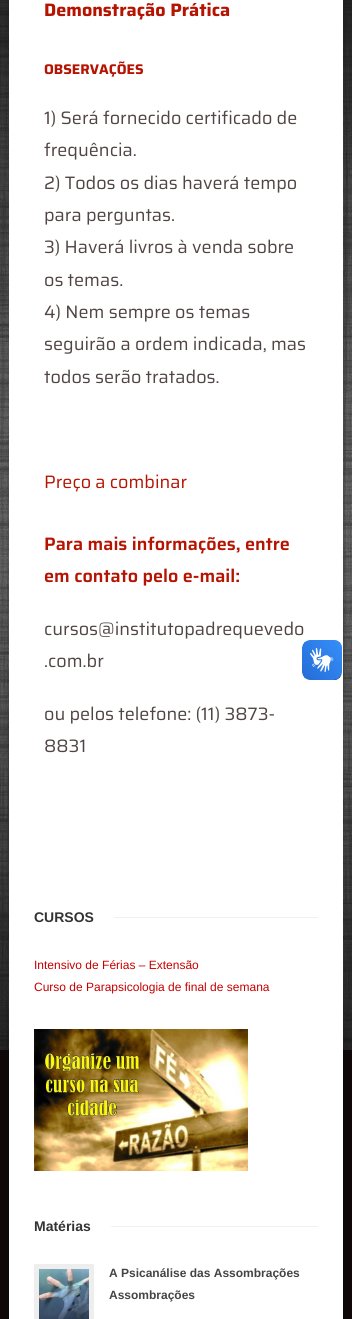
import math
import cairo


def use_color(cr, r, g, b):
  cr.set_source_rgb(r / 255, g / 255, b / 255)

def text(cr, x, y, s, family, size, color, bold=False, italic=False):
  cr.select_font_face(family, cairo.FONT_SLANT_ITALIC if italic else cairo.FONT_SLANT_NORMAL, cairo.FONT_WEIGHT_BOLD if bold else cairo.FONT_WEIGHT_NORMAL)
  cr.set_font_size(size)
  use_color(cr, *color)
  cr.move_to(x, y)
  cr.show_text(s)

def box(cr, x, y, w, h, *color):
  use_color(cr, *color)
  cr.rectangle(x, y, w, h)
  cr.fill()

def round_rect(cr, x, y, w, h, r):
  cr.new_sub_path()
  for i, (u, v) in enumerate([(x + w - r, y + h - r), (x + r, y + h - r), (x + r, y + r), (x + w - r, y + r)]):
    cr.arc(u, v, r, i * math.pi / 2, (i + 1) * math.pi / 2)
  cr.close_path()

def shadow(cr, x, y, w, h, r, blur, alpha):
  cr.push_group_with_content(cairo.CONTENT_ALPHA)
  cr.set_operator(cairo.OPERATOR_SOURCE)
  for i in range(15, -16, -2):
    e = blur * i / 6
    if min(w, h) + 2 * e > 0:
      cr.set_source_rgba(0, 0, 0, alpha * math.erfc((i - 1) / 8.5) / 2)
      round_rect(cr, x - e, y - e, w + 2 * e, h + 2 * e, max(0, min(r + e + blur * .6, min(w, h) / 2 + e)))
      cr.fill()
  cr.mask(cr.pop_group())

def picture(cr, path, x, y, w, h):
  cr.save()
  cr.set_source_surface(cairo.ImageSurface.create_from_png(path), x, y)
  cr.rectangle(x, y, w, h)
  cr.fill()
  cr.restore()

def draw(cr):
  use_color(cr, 16, 8, 8)
  cr.paint()
  picture(cr, "img_01.png", 0, 0, 352, 1050)
  use_color(cr, 0, 0, 0)
  shadow(cr, 9, -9, 334, 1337, 0, 3, 0.15)
  box(cr, 9, 0, 334, 1319, 255, 255, 255)
  box(cr, 114, 917, 204, 1, 240, 240, 240)
  picture(cr, "img_02.png", 34, 1029, 214, 142)
  box(cr, 111, 1226, 207, 1, 240, 240, 240)
  cr.rectangle(36.5, 1266.5, 55, 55)
  use_color(cr, 238, 238, 238)
  cr.set_line_width(5)
  cr.stroke()
  picture(cr, "img_03.png", 39, 1269, 50, 50)
  picture(cr, "img_04.png", 302, 640, 40, 40)
  picture(cr, "img_05.png", 302, 640, 40, 40)
  text(cr, 44, 16, "Demonstração Prática", "Saira", 18, (181, 20, 2), bold=True)
  text(cr, 44, 74, "OBSERVAÇÕES", "Saira", 14, (181, 20, 2), bold=True)
  text(cr, 44, 124, "1) Será fornecido certificado de", "Saira", 18, (81, 68, 68))
  text(cr, 44, 156, "frequência.", "Saira", 18, (81, 68, 68))
  text(cr, 44, 189, "2) Todos os dias haverá tempo", "Saira", 18, (81, 68, 68))
  text(cr, 44, 221, "para perguntas.", "Saira", 18, (81, 68, 68))
  text(cr, 44, 253, "3) Haverá livros à venda sobre", "Saira", 18, (81, 68, 68))
  text(cr, 44, 286, "os temas.", "Saira", 18, (81, 68, 68))
  text(cr, 44, 318, "4) Nem sempre os temas", "Saira", 18, (81, 68, 68))
  text(cr, 44, 350, "seguirão a ordem indicada, mas", "Saira", 18, (81, 68, 68))
  text(cr, 44, 383, "todos serão tratados.", "Saira", 18, (81, 68, 68))
  text(cr, 44, 488, "Preço a combinar", "Saira", 18, (181, 20, 2))
  text(cr, 44, 550, "Para mais informações, entre", "Saira SemiBold", 18, (181, 20, 2))
  text(cr, 44, 582, "em contato pelo e-mail:", "Saira SemiBold", 18, (181, 20, 2))
  text(cr, 44, 635, "cursos@institutopadrequevedo", "Saira", 18, (81, 68, 68))
  text(cr, 44, 667, ".com.br", "Saira", 18, (81, 68, 68))
  text(cr, 44, 720, "ou pelos telefone: (11) 3873-", "Saira", 18, (81, 68, 68))
  text(cr, 44, 752, "8831", "Saira", 18, (81, 68, 68))
  text(cr, 34, 922, "CURSOS", "Liberation Sans", 14, (51, 51, 51), bold=True)
  text(cr, 34, 969, "Intensivo de Férias – Extensão", "Liberation Sans", 12, (198, 0, 0))
  text(cr, 34, 991, "Curso de Parapsicologia de final de semana", "Liberation Sans", 12, (198, 0, 0))
  text(cr, 34, 1231, "Matérias", "Liberation Sans", 14, (51, 51, 51), bold=True)
  text(cr, 109, 1277, "A Psicanálise das Assombrações", "Liberation Sans", 12, (68, 68, 68), bold=True)
  text(cr, 109, 1299, "Assombrações", "Liberation Sans", 12, (68, 68, 68), bold=True)


surface = cairo.ImageSurface(cairo.FORMAT_RGB24, 352, 1319)
cr = cairo.Context(surface)
options = cairo.FontOptions()
options.set_hint_metrics(cairo.HINT_METRICS_OFF)
options.set_hint_style(cairo.HINT_STYLE_NONE)
cr.set_font_options(options)
cr.set_miter_limit(4)
draw(cr)
surface.write_to_png("out.png")
